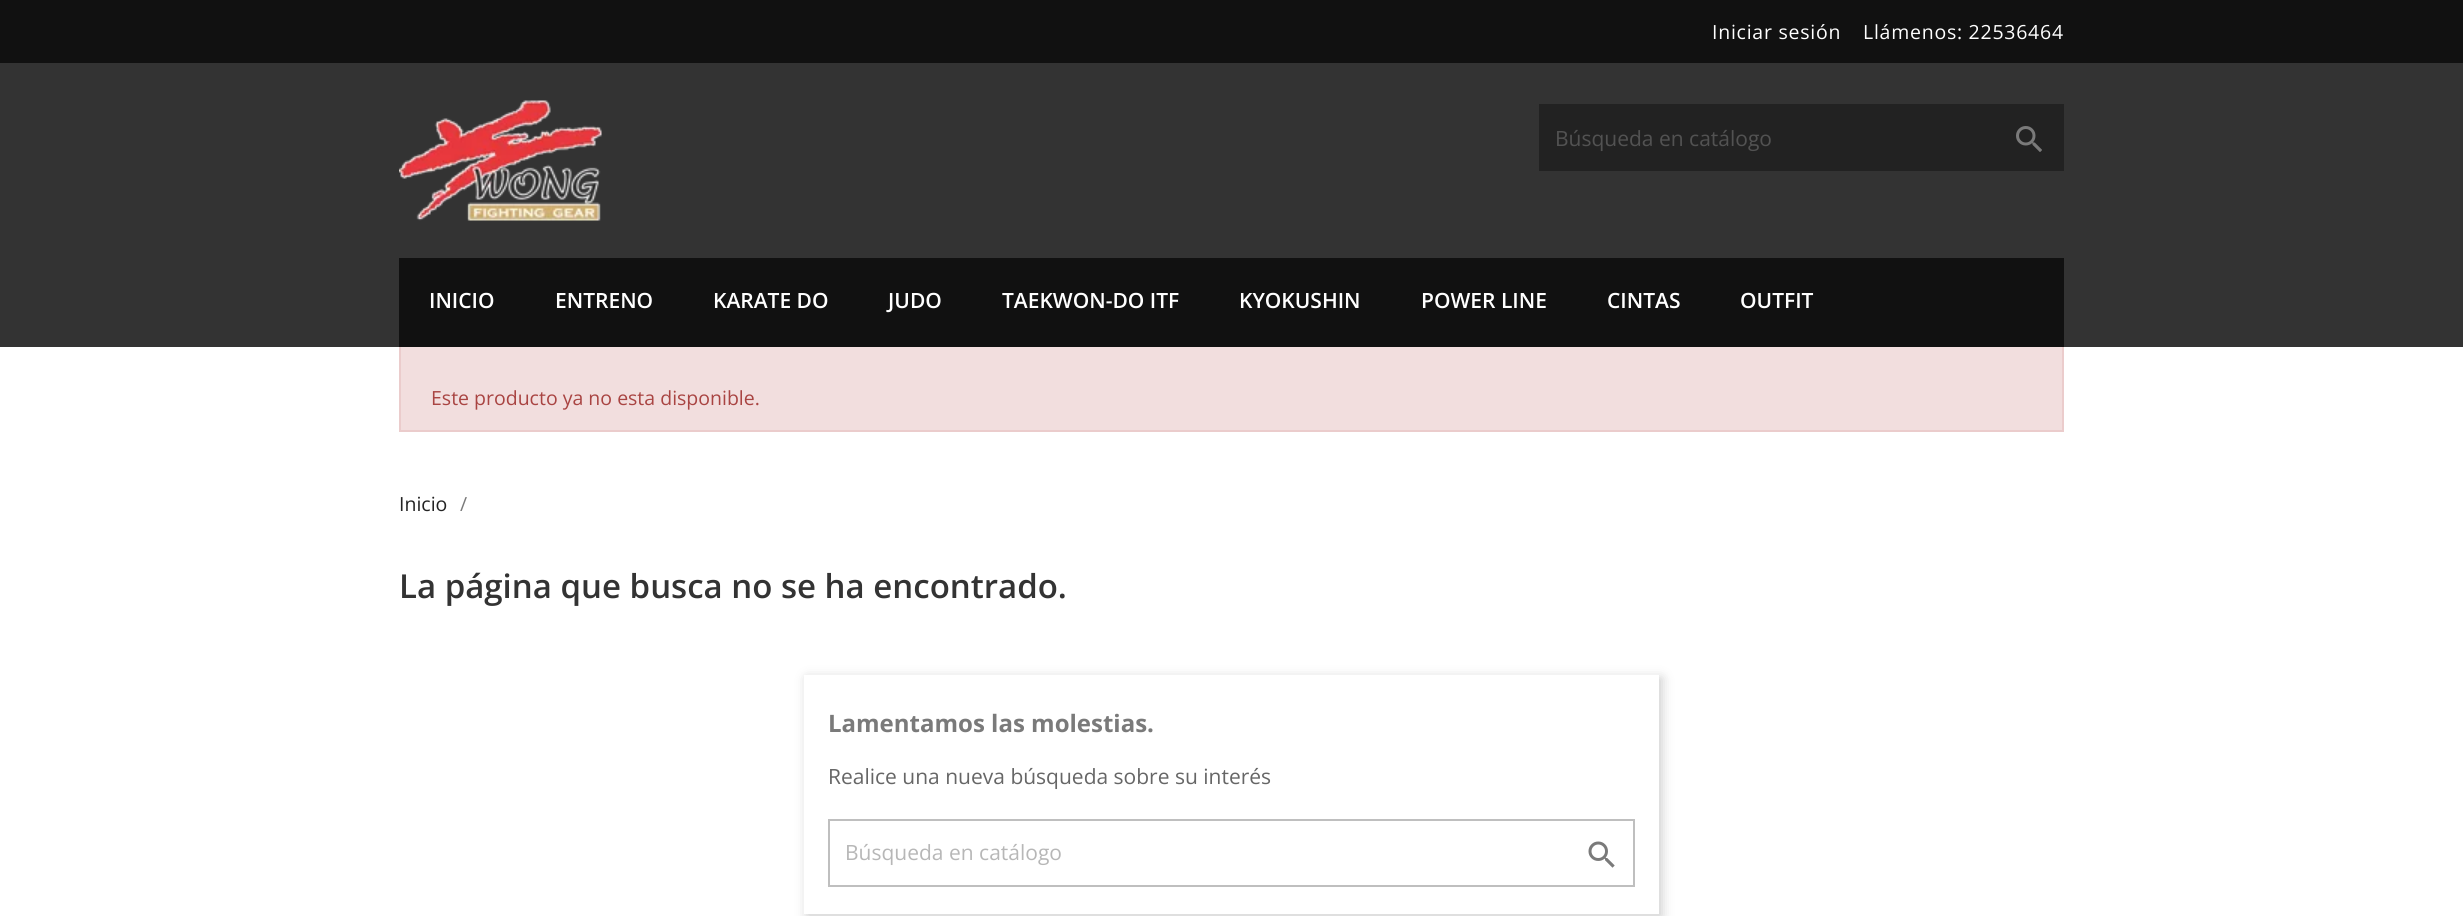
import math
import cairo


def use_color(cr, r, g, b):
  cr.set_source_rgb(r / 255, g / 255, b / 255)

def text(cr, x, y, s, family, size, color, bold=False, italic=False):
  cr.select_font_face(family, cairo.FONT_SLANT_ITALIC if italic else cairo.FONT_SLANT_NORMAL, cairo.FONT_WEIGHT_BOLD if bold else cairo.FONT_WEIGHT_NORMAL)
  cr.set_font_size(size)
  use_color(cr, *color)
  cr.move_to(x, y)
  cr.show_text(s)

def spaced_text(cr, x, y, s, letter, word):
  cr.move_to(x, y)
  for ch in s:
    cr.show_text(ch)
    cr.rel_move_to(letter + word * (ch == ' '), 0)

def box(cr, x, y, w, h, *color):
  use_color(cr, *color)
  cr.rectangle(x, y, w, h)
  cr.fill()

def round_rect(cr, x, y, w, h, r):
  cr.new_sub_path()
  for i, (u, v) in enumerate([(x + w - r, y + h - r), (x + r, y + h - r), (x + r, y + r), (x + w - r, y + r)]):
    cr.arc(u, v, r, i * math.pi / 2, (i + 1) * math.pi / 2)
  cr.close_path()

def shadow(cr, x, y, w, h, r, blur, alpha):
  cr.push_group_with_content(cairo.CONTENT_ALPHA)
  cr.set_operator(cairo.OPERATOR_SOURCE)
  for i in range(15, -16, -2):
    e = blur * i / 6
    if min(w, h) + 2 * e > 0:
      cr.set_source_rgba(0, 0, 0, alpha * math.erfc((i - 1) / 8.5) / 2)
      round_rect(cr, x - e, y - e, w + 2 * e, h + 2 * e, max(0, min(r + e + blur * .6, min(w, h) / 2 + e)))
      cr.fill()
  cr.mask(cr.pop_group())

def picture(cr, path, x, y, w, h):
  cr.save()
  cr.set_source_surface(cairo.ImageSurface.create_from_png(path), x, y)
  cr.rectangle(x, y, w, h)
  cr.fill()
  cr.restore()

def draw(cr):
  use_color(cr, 255, 255, 255)
  cr.paint()
  box(cr, 401, 347, 1661, 83, 242, 222, 222)
  cr.rectangle(400, 1, 1663, 430)
  use_color(cr, 235, 204, 204)
  cr.stroke()
  box(cr, 0, 0, 2463, 63, 17, 17, 17)
  box(cr, 0, 63, 2463, 284, 51, 51, 51)
  picture(cr, "img_01.png", 399, 100, 203, 121)
  box(cr, 1539, 104, 525, 67, 34, 34, 34)
  picture(cr, "img_02.png", 2016, 126, 26, 26)
  box(cr, 399, 258, 1665, 89, 17, 17, 17)
  use_color(cr, 0, 0, 0)
  shadow(cr, 807, 678, 855, 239, 0, 6, 0.2)
  box(cr, 804, 675, 855, 239, 255, 255, 255)
  cr.rectangle(829, 820, 805, 66)
  use_color(cr, 191, 191, 191)
  cr.stroke()
  picture(cr, "img_03.png", 1588, 841, 27, 27)
  cr.select_font_face("Open Sans")
  cr.set_font_size(19.5)
  use_color(cr, 255, 255, 255)
  spaced_text(cr, 1712, 39, "Iniciar sesión", 0.75, 0)
  spaced_text(cr, 1863, 39, "Llámenos: 22536464", 0.75, 0)
  text(cr, 1555, 146, "Búsqueda en catálogo", "Open Sans", 21, (82, 82, 82))
  text(cr, 429, 308, "INICIO", "Open Sans SemiBold", 21, (255, 255, 255))
  text(cr, 555, 308, "ENTRENO", "Open Sans SemiBold", 21, (255, 255, 255))
  text(cr, 713, 308, "KARATE DO", "Open Sans SemiBold", 21, (255, 255, 255))
  text(cr, 888, 308, "JUDO", "Open Sans SemiBold", 21, (255, 255, 255))
  text(cr, 1002, 308, "TAEKWON-DO ITF", "Open Sans SemiBold", 21, (255, 255, 255))
  text(cr, 1239, 308, "KYOKUSHIN", "Open Sans SemiBold", 21, (255, 255, 255))
  text(cr, 1421, 308, "POWER LINE", "Open Sans SemiBold", 21, (255, 255, 255))
  text(cr, 1607, 308, "CINTAS", "Open Sans SemiBold", 21, (255, 255, 255))
  text(cr, 1740, 308, "OUTFIT", "Open Sans SemiBold", 21, (255, 255, 255))
  text(cr, 431, 405, "Este producto ya no esta disponible.", "Open Sans", 19.5, (169, 68, 66))
  text(cr, 399, 511, "Inicio", "Open Sans", 19.5, (35, 35, 35))
  text(cr, 460, 511, "/", "Open Sans", 19.5, (122, 122, 122))
  text(cr, 399, 598, "La página que busca no se ha encontrado.", "Open Sans SemiBold", 33, (51, 51, 51))
  text(cr, 828, 732, "Lamentamos las molestias.", "Open Sans", 24, (122, 122, 122), bold=True)
  text(cr, 828, 784, "Realice una nueva búsqueda sobre su interés", "Open Sans", 21, (102, 102, 102))
  text(cr, 845, 860, "Búsqueda en catálogo", "Open Sans", 21, (183, 183, 183))


surface = cairo.ImageSurface(cairo.FORMAT_RGB24, 2463, 916)
cr = cairo.Context(surface)
options = cairo.FontOptions()
options.set_hint_metrics(cairo.HINT_METRICS_OFF)
options.set_hint_style(cairo.HINT_STYLE_NONE)
cr.set_font_options(options)
cr.set_miter_limit(4)
draw(cr)
surface.write_to_png("out.png")
